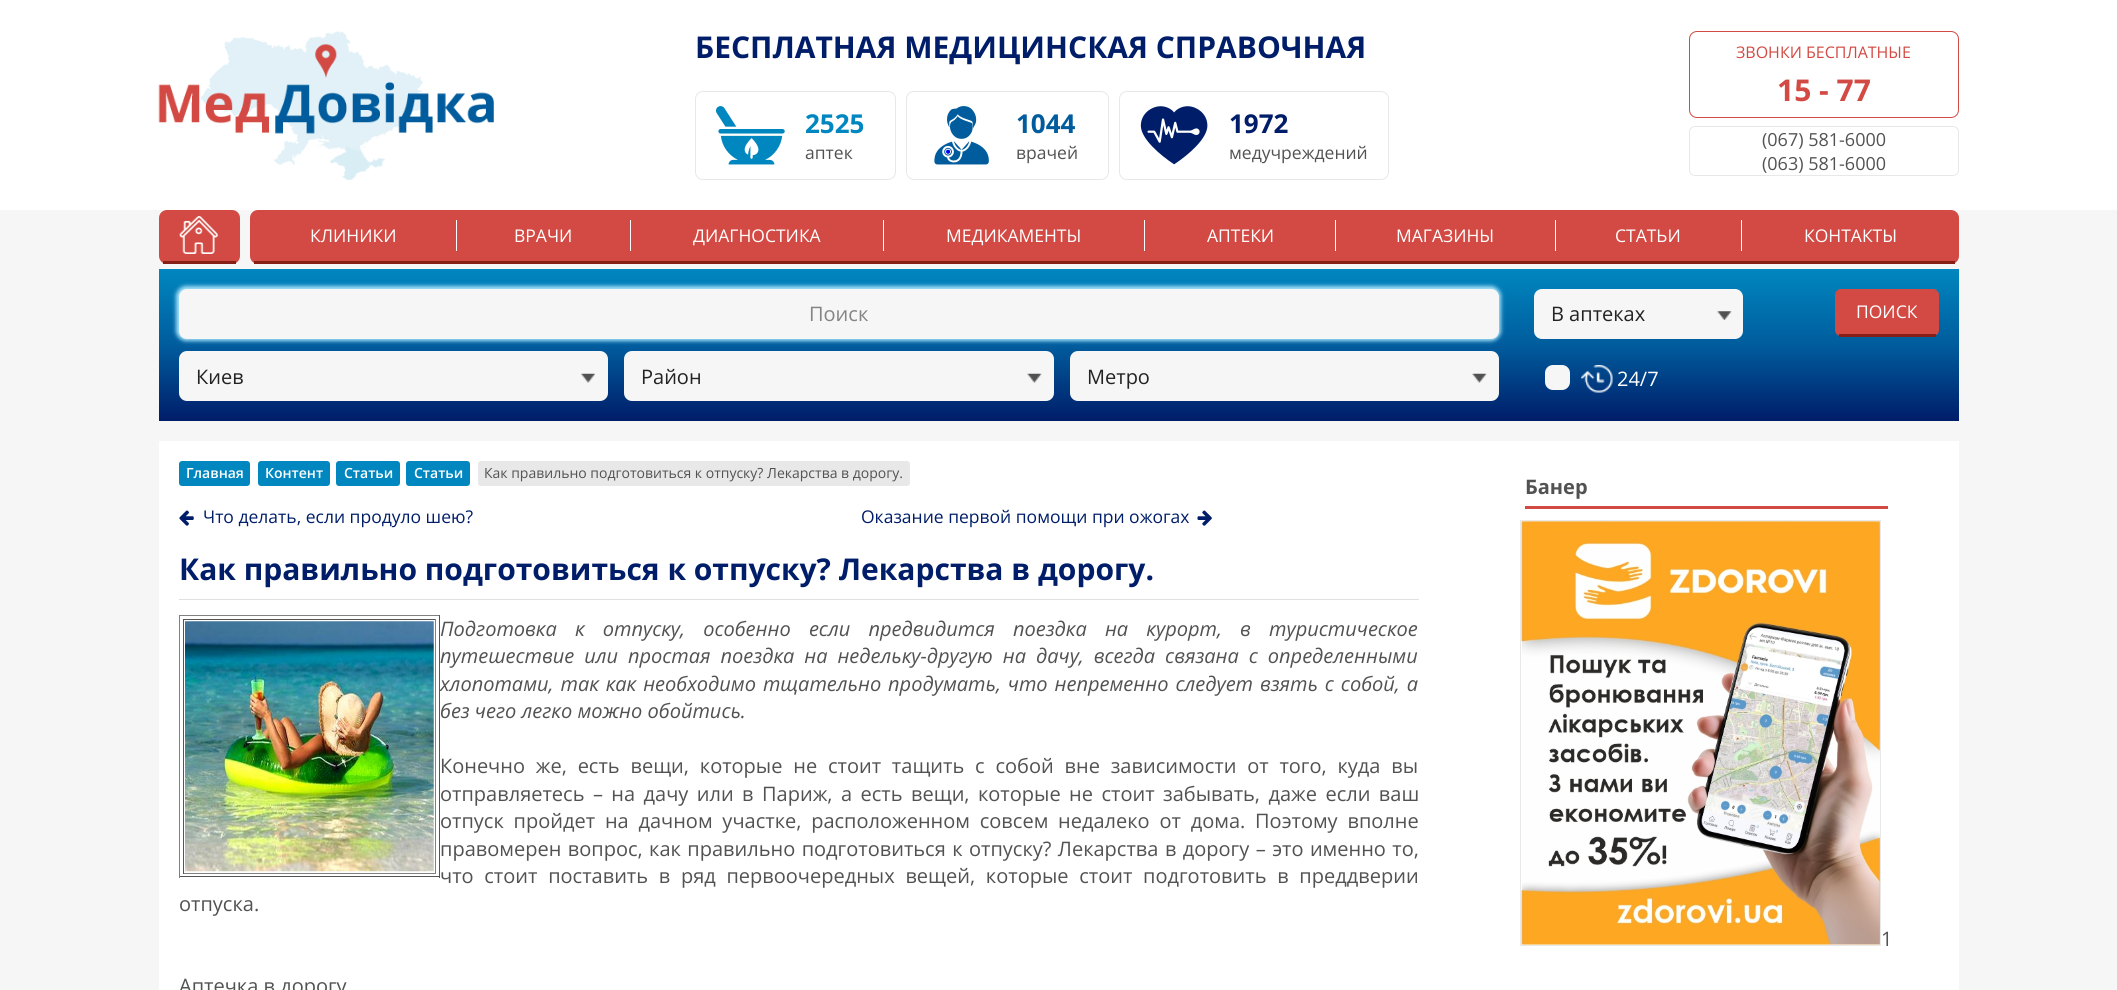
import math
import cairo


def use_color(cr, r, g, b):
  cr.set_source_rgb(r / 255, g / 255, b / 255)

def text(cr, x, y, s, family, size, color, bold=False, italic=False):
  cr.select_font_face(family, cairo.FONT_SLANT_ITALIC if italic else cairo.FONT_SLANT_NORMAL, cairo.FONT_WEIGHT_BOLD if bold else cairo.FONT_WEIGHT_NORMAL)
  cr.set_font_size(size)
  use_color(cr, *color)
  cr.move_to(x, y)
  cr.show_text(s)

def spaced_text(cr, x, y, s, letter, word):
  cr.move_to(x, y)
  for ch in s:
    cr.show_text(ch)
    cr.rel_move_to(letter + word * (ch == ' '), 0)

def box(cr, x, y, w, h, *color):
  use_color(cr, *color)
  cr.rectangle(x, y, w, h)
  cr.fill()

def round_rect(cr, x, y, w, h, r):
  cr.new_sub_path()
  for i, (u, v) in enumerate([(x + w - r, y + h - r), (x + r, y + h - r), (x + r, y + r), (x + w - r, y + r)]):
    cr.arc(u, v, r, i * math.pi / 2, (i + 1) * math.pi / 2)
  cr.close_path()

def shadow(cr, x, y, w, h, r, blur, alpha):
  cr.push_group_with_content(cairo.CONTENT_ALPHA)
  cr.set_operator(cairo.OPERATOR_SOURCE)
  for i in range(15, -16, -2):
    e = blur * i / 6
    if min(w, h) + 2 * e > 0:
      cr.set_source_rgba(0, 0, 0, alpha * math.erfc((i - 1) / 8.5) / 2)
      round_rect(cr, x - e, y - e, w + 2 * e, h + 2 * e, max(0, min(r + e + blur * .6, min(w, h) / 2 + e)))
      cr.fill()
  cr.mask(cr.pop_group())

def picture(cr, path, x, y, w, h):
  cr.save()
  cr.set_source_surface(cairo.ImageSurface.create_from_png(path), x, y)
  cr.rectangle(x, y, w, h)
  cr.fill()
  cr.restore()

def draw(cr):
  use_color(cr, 255, 255, 255)
  cr.paint()
  picture(cr, "img_01.png", 158, 31, 336, 149)
  round_rect(cr, 695.5, 91.5, 200, 88, 7.5)
  use_color(cr, 232, 232, 232)
  cr.set_line_width(1)
  cr.stroke()
  picture(cr, "img_02.png", 716, 106, 69, 59)
  round_rect(cr, 906.5, 91.5, 202, 88, 7.5)
  cr.stroke()
  picture(cr, "img_03.png", 934, 106, 55, 59)
  round_rect(cr, 1119.5, 91.5, 269, 88, 7.5)
  cr.stroke()
  picture(cr, "img_04.png", 1140, 106, 68, 59)
  round_rect(cr, 1689.5, 31.5, 269, 86, 7.5)
  use_color(cr, 210, 74, 67)
  cr.stroke()
  round_rect(cr, 1689.5, 126.5, 269, 49, 5.5)
  use_color(cr, 232, 232, 232)
  cr.stroke()
  box(cr, 0, 210, 2117, 780, 246, 246, 246)
  use_color(cr, 210, 74, 67)
  round_rect(cr, 159, 210, 81, 54, 8)
  cr.fill()
  picture(cr, "img_05.png", 179, 216, 39, 38)
  box(cr, 163, 261, 73, 3, 135, 31, 25)
  use_color(cr, 210, 74, 67)
  round_rect(cr, 250, 210, 1709, 54, 8)
  cr.fill()
  box(cr, 254, 261, 1701, 3, 135, 31, 25)
  box(cr, 456, 220, 1, 31, 255, 255, 255)
  box(cr, 630, 220, 1, 31, 255, 255, 255)
  box(cr, 883, 220, 1, 31, 255, 255, 255)
  box(cr, 1144, 220, 1, 31, 255, 255, 255)
  box(cr, 1335, 220, 1, 31, 255, 255, 255)
  box(cr, 1555, 220, 1, 31, 255, 255, 255)
  box(cr, 1741, 220, 1, 31, 255, 255, 255)
  gradient = cairo.LinearGradient(1059, 269, 1059, 421)
  gradient.add_color_stop_rgba(0, 0, 0.529, 0.749, 1)
  gradient.add_color_stop_rgba(0.5, 0, 0.361, 0.616, 1)
  gradient.add_color_stop_rgba(1, 0, 0.114, 0.412, 1)
  cr.set_source(gradient)
  cr.rectangle(159, 269, 1800, 152)
  cr.fill()
  use_color(cr, 165, 225, 250)
  shadow(cr, 176, 286, 1325, 55, 10, 2, 1)
  use_color(cr, 246, 246, 246)
  round_rect(cr, 179, 289, 1320, 50, 8)
  cr.fill()
  round_rect(cr, 179, 351, 429, 50, 8)
  cr.fill()
  picture(cr, "img_06.png", 581, 373, 14, 10)
  round_rect(cr, 624, 351, 430, 50, 8)
  cr.fill()
  picture(cr, "img_07.png", 1027, 373, 15, 10)
  round_rect(cr, 1070, 351, 429, 50, 8)
  cr.fill()
  picture(cr, "img_07.png", 1472, 373, 15, 10)
  round_rect(cr, 1534, 289, 209, 50, 8)
  cr.fill()
  picture(cr, "img_08.png", 1717, 311, 15, 9)
  round_rect(cr, 1545, 365, 25, 25, 8)
  cr.fill()
  picture(cr, "img_09.png", 1581, 365, 32, 28)
  use_color(cr, 210, 74, 67)
  round_rect(cr, 1835, 289, 104, 47, 6)
  cr.fill()
  box(cr, 1839, 334, 97, 3, 135, 31, 25)
  box(cr, 159, 441, 1800, 549, 255, 255, 255)
  use_color(cr, 0, 135, 191)
  round_rect(cr, 179, 461, 71, 25, 3)
  cr.fill()
  round_rect(cr, 258, 461, 72, 25, 3)
  cr.fill()
  round_rect(cr, 336, 461, 64, 25, 3)
  cr.fill()
  round_rect(cr, 406, 461, 64, 25, 3)
  cr.fill()
  use_color(cr, 232, 232, 232)
  round_rect(cr, 478, 461, 432, 25, 3)
  cr.fill()
  picture(cr, "img_10.png", 179, 510, 15, 16)
  picture(cr, "img_11.png", 1197, 510, 15, 16)
  box(cr, 179, 599, 1240, 1, 224, 224, 224)
  box(cr, 179, 615, 261, 1, 128, 128, 128)
  box(cr, 439, 615, 1, 263, 85, 85, 85)
  box(cr, 179, 876, 261, 1, 85, 85, 85)
  box(cr, 179, 615, 1, 263, 128, 128, 128)
  box(cr, 183, 619, 253, 1, 85, 85, 85)
  box(cr, 435, 619, 1, 255, 128, 128, 128)
  box(cr, 183, 873, 253, 1, 128, 128, 128)
  box(cr, 183, 619, 1, 255, 85, 85, 85)
  picture(cr, "img_12.png", 185, 621, 249, 251)
  box(cr, 1525, 506, 363, 3, 210, 74, 67)
  cr.rectangle(1520.5, 520.5, 360, 425)
  use_color(cr, 232, 232, 232)
  cr.stroke()
  picture(cr, "img_13.png", 1521, 521, 359, 424)
  text(cr, 695, 58, "БЕСПЛАТНАЯ МЕДИЦИНСКАЯ СПРАВОЧНАЯ", "Open Sans", 30, (0, 29, 105), bold=True)
  text(cr, 805, 133, "2525", "Open Sans", 26, (0, 135, 191), bold=True)
  text(cr, 805, 159, "аптек", "Open Sans", 17.5, (82, 82, 82))
  text(cr, 1016, 133, "1044", "Open Sans", 26, (0, 92, 157), bold=True)
  text(cr, 1016, 159, "врачей", "Open Sans", 17.5, (82, 82, 82))
  text(cr, 1229, 133, "1972", "Open Sans", 26, (0, 29, 105), bold=True)
  text(cr, 1229, 159, "медучреждений", "Open Sans", 17.5, (82, 82, 82))
  text(cr, 1736, 58, "ЗВОНКИ БЕСПЛАТНЫЕ", "Open Sans", 16, (210, 74, 67))
  text(cr, 1777, 101, "15 - 77", "Open Sans", 30, (210, 74, 67), bold=True)
  text(cr, 1762, 146, "(067) 581-6000", "Open Sans", 18, (82, 82, 82))
  text(cr, 1762, 170, "(063) 581-6000", "Open Sans", 18, (82, 82, 82))
  text(cr, 310, 242, "КЛИНИКИ", "Open Sans", 17.5, (255, 255, 255))
  text(cr, 514, 242, "ВРАЧИ", "Open Sans", 17.5, (255, 255, 255))
  text(cr, 693, 242, "ДИАГНОСТИКА", "Open Sans", 17.5, (255, 255, 255))
  text(cr, 946, 242, "МЕДИКАМЕНТЫ", "Open Sans", 17.5, (255, 255, 255))
  text(cr, 1207, 242, "АПТЕКИ", "Open Sans", 17.5, (255, 255, 255))
  text(cr, 1396, 242, "МАГАЗИНЫ", "Open Sans", 17.5, (255, 255, 255))
  text(cr, 1615, 242, "СТАТЬИ", "Open Sans", 17.5, (255, 255, 255))
  text(cr, 1804, 242, "КОНТАКТЫ", "Open Sans", 17.5, (255, 255, 255))
  text(cr, 809, 321, "Поиск", "Open Sans", 20, (132, 132, 132))
  text(cr, 196, 384, "Киев", "Open Sans", 20, (35, 35, 35))
  text(cr, 641, 384, "Район", "Open Sans", 20, (35, 35, 35))
  text(cr, 1087, 384, "Метро", "Open Sans", 20, (35, 35, 35))
  text(cr, 1551, 321, "В аптеках", "Open Sans", 20, (35, 35, 35))
  text(cr, 1617, 386, "24/7", "Open Sans", 20, (255, 255, 255))
  text(cr, 1856, 318, "ПОИСК", "Open Sans", 17.5, (255, 255, 255))
  text(cr, 186, 478, "Главная", "Open Sans SemiBold", 14, (255, 255, 255))
  text(cr, 265, 478, "Контент", "Open Sans SemiBold", 14, (255, 255, 255))
  text(cr, 344, 478, "Статьи", "Open Sans SemiBold", 14, (255, 255, 255))
  text(cr, 414, 478, "Статьи", "Open Sans SemiBold", 14, (255, 255, 255))
  text(cr, 484, 478, "Как правильно подготовиться к отпуску? Лекарства в дорогу.", "Open Sans", 14, (82, 82, 82))
  text(cr, 203, 523, "Что делать, если продуло шею?", "Open Sans", 17.5, (0, 29, 105))
  text(cr, 861, 523, "Оказание первой помощи при ожогах", "Open Sans", 17.5, (0, 29, 105))
  text(cr, 179, 580, "Как правильно подготовиться к отпуску? Лекарства в дорогу.", "Open Sans", 30, (0, 29, 105), bold=True)
  cr.select_font_face("Open Sans", cairo.FONT_SLANT_ITALIC)
  cr.set_font_size(20)
  use_color(cr, 82, 82, 82)
  spaced_text(cr, 440, 636, "Подготовка к отпуску, особенно если предвидится поездка на курорт, в туристическое", 0, 13)
  spaced_text(cr, 440, 663, "путешествие или простая поездка на недельку-другую на дачу, всегда связана с определенными", 0, 4.75)
  spaced_text(cr, 440, 691, "хлопотами, так как необходимо тщательно продумать, что непременно следует взять с собой, а", 0, 1.75)
  text(cr, 440, 718, "без чего легко можно обойтись.", "Open Sans", 20, (82, 82, 82), italic=True)
  cr.select_font_face("Open Sans")
  spaced_text(cr, 440, 773, "Конечно же, есть вещи, которые не стоит тащить с собой вне зависимости от того, куда вы", 0, 5.6)
  spaced_text(cr, 440, 801, "отправляетесь – на дачу или в Париж, а есть вещи, которые не стоит забывать, даже если ваш", 0, 3.25)
  spaced_text(cr, 440, 828, "отпуск пройдет на дачном участке, расположенном совсем недалеко от дома. Поэтому вполне", 0, 4.6)
  spaced_text(cr, 440, 856, "правомерен вопрос, как правильно подготовиться к отпуску? Лекарства в дорогу – это именно то,", 0, 1.25)
  spaced_text(cr, 440, 883, "что стоит поставить в ряд первоочередных вещей, которые стоит подготовить в преддверии", 0, 5.5)
  text(cr, 179, 911, "отпуска.", "Open Sans", 20, (82, 82, 82))
  text(cr, 179, 993, "Аптечка в дорогу", "Open Sans", 20, (82, 82, 82))
  text(cr, 1525, 494, "Банер", "Open Sans", 20, (82, 82, 82), bold=True)
  text(cr, 1881, 946, "1", "Open Sans", 20, (82, 82, 82))


surface = cairo.ImageSurface(cairo.FORMAT_RGB24, 2117, 990)
cr = cairo.Context(surface)
options = cairo.FontOptions()
options.set_hint_metrics(cairo.HINT_METRICS_OFF)
options.set_hint_style(cairo.HINT_STYLE_NONE)
cr.set_font_options(options)
cr.set_miter_limit(4)
draw(cr)
surface.write_to_png("out.png")
